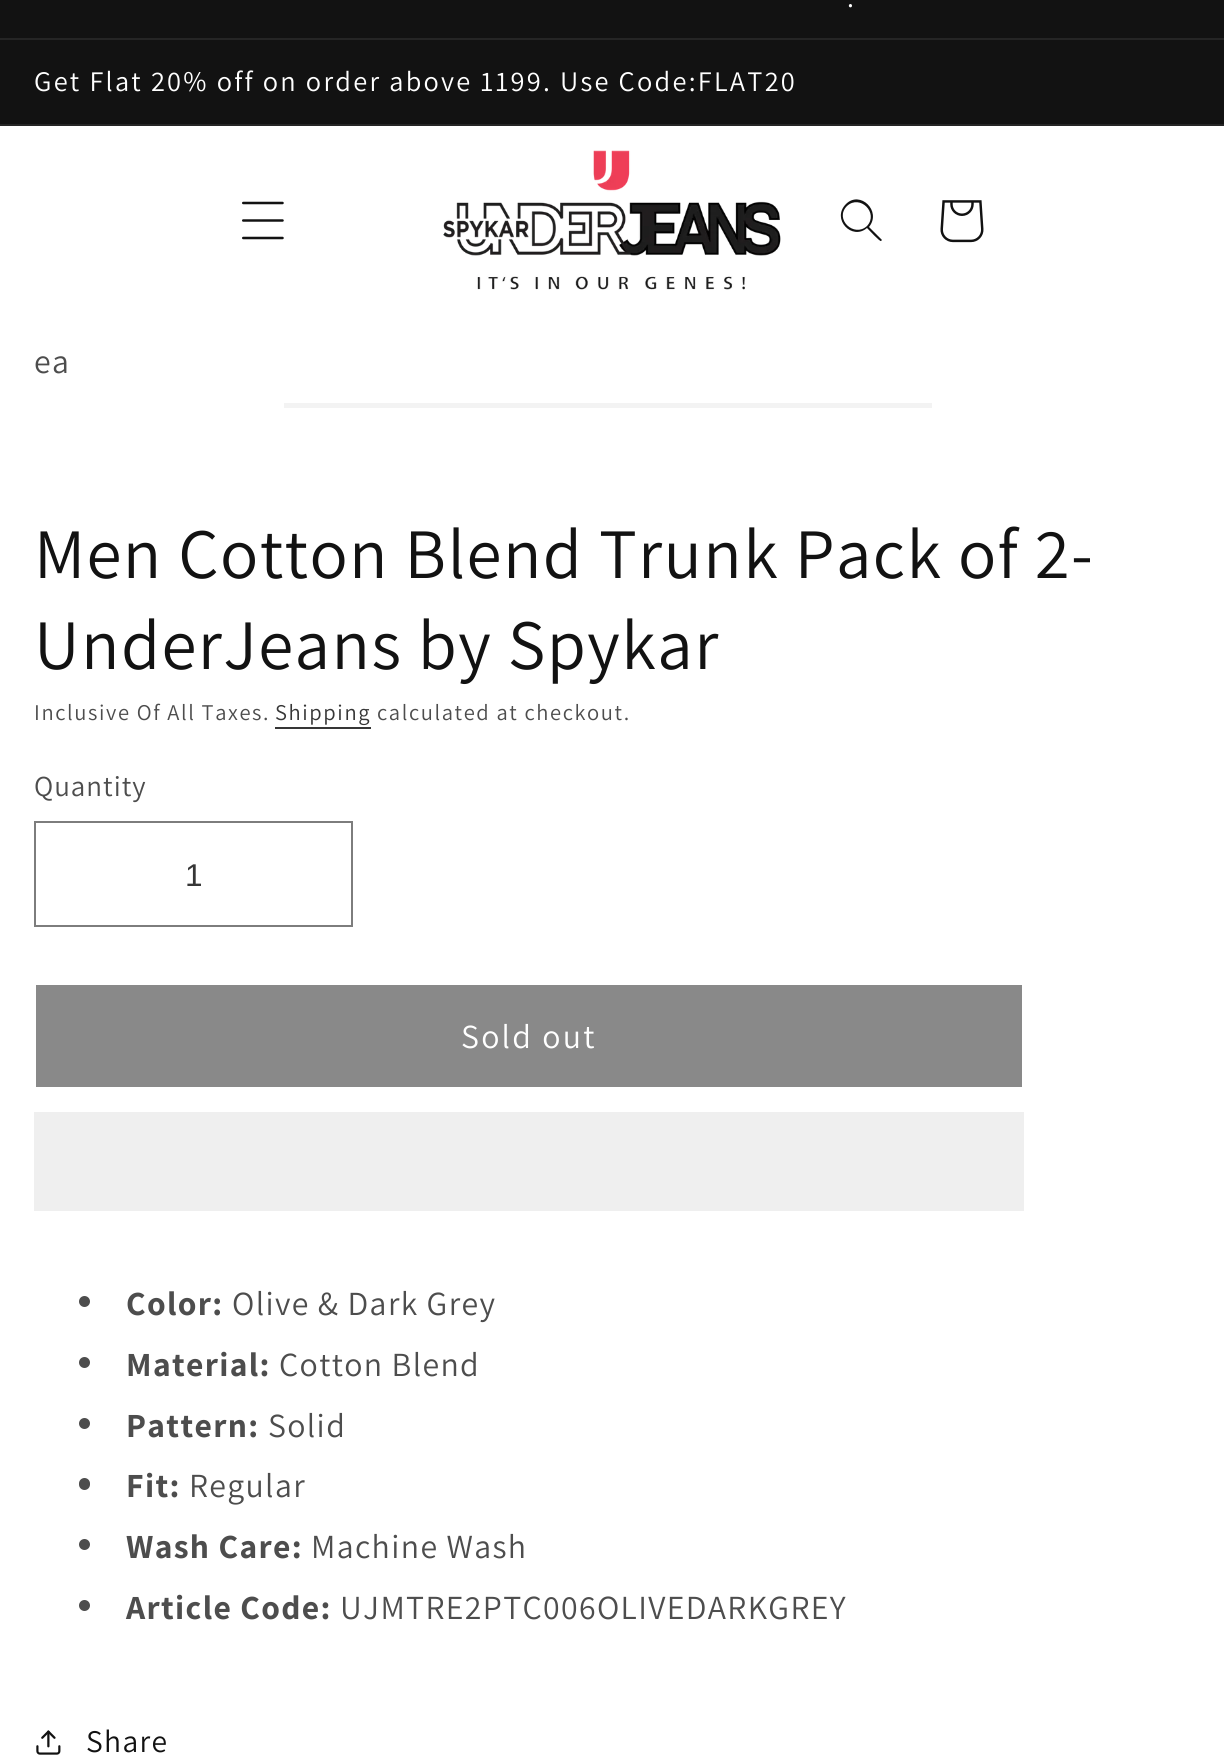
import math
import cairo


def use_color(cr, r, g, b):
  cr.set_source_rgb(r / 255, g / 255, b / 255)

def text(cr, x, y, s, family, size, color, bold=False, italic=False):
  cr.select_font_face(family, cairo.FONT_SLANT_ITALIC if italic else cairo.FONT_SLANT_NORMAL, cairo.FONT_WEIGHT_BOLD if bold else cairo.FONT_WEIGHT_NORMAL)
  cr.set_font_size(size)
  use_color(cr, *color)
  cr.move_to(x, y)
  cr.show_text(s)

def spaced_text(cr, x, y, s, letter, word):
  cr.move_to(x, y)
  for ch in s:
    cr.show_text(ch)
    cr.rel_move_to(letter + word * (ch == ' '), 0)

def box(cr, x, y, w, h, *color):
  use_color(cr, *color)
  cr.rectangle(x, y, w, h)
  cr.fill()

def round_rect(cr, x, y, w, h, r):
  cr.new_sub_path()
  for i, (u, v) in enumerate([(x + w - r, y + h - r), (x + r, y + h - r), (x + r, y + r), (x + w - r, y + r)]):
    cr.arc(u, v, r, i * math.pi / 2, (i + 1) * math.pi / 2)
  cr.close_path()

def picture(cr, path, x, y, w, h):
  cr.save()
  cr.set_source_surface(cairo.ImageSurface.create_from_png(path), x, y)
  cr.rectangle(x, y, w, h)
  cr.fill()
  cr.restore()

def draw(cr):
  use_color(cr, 255, 255, 255)
  cr.paint()
  box(cr, 0, 0, 1224, 124, 18, 18, 18)
  box(cr, 0, 38, 1224, 2, 37, 37, 37)
  box(cr, 0, 124, 1224, 2, 37, 37, 37)
  picture(cr, "img_01.png", 242, 201, 42, 39)
  picture(cr, "img_02.png", 443, 150, 338, 140)
  use_color(cr, 18, 18, 18)
  cr.set_fill_rule(cairo.FILL_RULE_EVEN_ODD)
  cr.new_path()
  cr.move_to(867, 226)
  cr.curve_to(854, 238, 834, 219, 847, 206)
  cr.curve_to(860, 194, 879, 213, 867, 226)
  cr.close_path()
  cr.move_to(867, 228)
  cr.curve_to(852, 241, 831, 219, 846, 204)
  cr.curve_to(860, 190, 882, 211, 869, 227)
  cr.line_to(882, 240)
  cr.line_to(881, 241)
  cr.curve_to(880, 242, 869, 230, 867, 228)
  cr.close_path()
  cr.fill()
  picture(cr, "img_03.png", 940, 200, 44, 43)
  box(cr, 284, 403, 648, 5, 243, 243, 243)
  box(cr, 275, 727, 96, 2, 54, 54, 54)
  cr.rectangle(35, 822, 317, 104)
  use_color(cr, 125, 125, 125)
  cr.stroke()
  box(cr, 36, 985, 986, 102, 137, 137, 137)
  box(cr, 34, 1112, 990, 99, 239, 239, 239)
  use_color(cr, 77, 77, 77)
  cr.arc(84.5, 1301.5, 5.5, 0, 2 * math.pi)
  cr.fill()
  cr.arc(84.5, 1362.5, 5.5, 0, 2 * math.pi)
  cr.fill()
  cr.arc(84.5, 1423.5, 5.5, 0, 2 * math.pi)
  cr.fill()
  round_rect(cr, 79, 1478, 11, 12, 5.5)
  cr.fill()
  cr.arc(84.5, 1544.5, 5.5, 0, 2 * math.pi)
  cr.fill()
  cr.arc(84.5, 1605.5, 5.5, 0, 2 * math.pi)
  cr.fill()
  picture(cr, "img_04.png", 36, 1730, 25, 25)
  cr.select_font_face("Assistant")
  cr.set_font_size(28.35)
  use_color(cr, 255, 255, 255)
  spaced_text(cr, 847, 7, ".", 2.25, 0)
  spaced_text(cr, 34, 91, "Get Flat 20% off on order above 1199. Use Code:FLAT20", 2.25, 0)
  cr.set_font_size(33.75)
  use_color(cr, 77, 77, 77)
  spaced_text(cr, 34, 373, "ea", 1.35, 0)
  cr.set_font_size(70.9)
  use_color(cr, 18, 18, 18)
  spaced_text(cr, 34, 578, "Men Cotton Blend Trunk Pack of 2-", 1.4, 0)
  spaced_text(cr, 34, 669, "UnderJeans by Spykar", 1.4, 0)
  cr.set_font_size(22.5)
  use_color(cr, 77, 77, 77)
  spaced_text(cr, 34, 720, "Inclusive Of All Taxes.", 1.6, 0)
  use_color(cr, 54, 54, 54)
  spaced_text(cr, 275, 720, "Shipping", 1.6, 0)
  use_color(cr, 77, 77, 77)
  spaced_text(cr, 377, 720, "calculated at checkout.", 1.6, 0)
  cr.set_font_size(29)
  spaced_text(cr, 34, 796, "Quantity", 1, 0)
  text(cr, 185, 886, "1", "Liberation Sans", 31.5, (54, 54, 54))
  cr.select_font_face("Assistant")
  cr.set_font_size(33.75)
  use_color(cr, 255, 255, 255)
  spaced_text(cr, 461, 1048, "Sold out", 2.25, 0)
  cr.select_font_face("Assistant", cairo.FONT_SLANT_NORMAL, cairo.FONT_WEIGHT_BOLD)
  use_color(cr, 77, 77, 77)
  spaced_text(cr, 126, 1315, "Color:", 1.35, 0)
  cr.select_font_face("Assistant")
  spaced_text(cr, 232, 1315, "Olive & Dark Grey", 1.35, 0)
  cr.select_font_face("Assistant", cairo.FONT_SLANT_NORMAL, cairo.FONT_WEIGHT_BOLD)
  spaced_text(cr, 126, 1376, "Material:", 1.35, 0)
  cr.select_font_face("Assistant")
  spaced_text(cr, 279, 1376, "Cotton Blend", 1.35, 0)
  cr.select_font_face("Assistant", cairo.FONT_SLANT_NORMAL, cairo.FONT_WEIGHT_BOLD)
  spaced_text(cr, 126, 1437, "Pattern:", 1.35, 0)
  cr.select_font_face("Assistant")
  spaced_text(cr, 268, 1437, "Solid", 1.35, 0)
  cr.select_font_face("Assistant", cairo.FONT_SLANT_NORMAL, cairo.FONT_WEIGHT_BOLD)
  spaced_text(cr, 126, 1497, "Fit:", 1.35, 0)
  cr.select_font_face("Assistant")
  spaced_text(cr, 189, 1497, "Regular", 1.35, 0)
  cr.select_font_face("Assistant", cairo.FONT_SLANT_NORMAL, cairo.FONT_WEIGHT_BOLD)
  spaced_text(cr, 126, 1558, "Wash Care:", 1.35, 0)
  cr.select_font_face("Assistant")
  spaced_text(cr, 311, 1558, "Machine Wash", 1.35, 0)
  cr.select_font_face("Assistant", cairo.FONT_SLANT_NORMAL, cairo.FONT_WEIGHT_BOLD)
  spaced_text(cr, 126, 1619, "Article Code:", 1.35, 0)
  cr.select_font_face("Assistant")
  spaced_text(cr, 340, 1619, "UJMTRE2PTC006OLIVEDARKGREY", 1.35, 0)
  cr.set_font_size(31.5)
  use_color(cr, 18, 18, 18)
  spaced_text(cr, 86, 1752, "Share", 1.35, 0)


surface = cairo.ImageSurface(cairo.FORMAT_RGB24, 1224, 1757)
cr = cairo.Context(surface)
options = cairo.FontOptions()
options.set_hint_metrics(cairo.HINT_METRICS_OFF)
options.set_hint_style(cairo.HINT_STYLE_NONE)
cr.set_font_options(options)
cr.set_miter_limit(4)
draw(cr)
surface.write_to_png("out.png")
